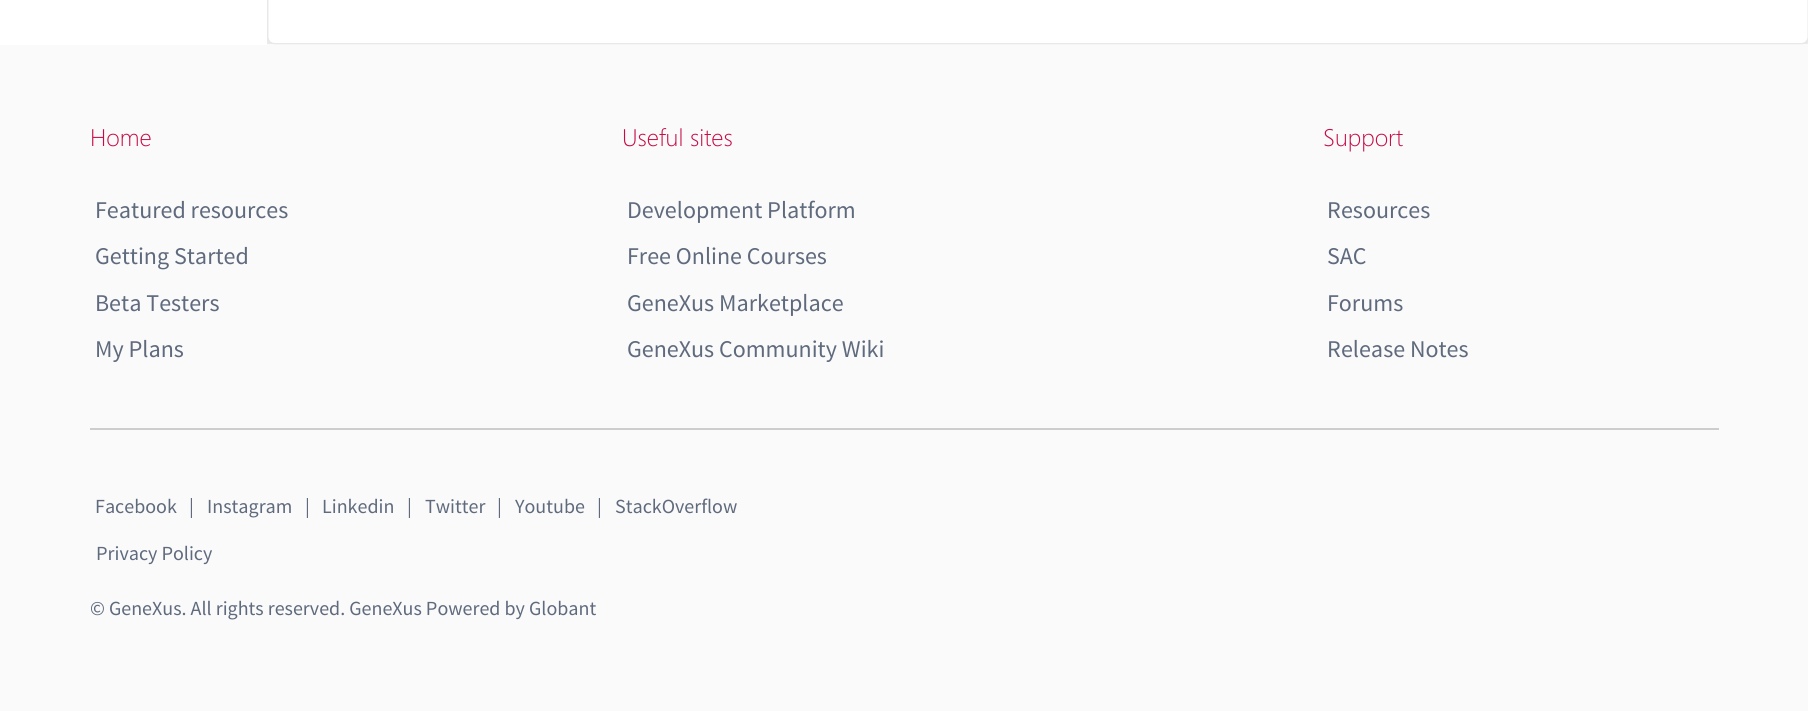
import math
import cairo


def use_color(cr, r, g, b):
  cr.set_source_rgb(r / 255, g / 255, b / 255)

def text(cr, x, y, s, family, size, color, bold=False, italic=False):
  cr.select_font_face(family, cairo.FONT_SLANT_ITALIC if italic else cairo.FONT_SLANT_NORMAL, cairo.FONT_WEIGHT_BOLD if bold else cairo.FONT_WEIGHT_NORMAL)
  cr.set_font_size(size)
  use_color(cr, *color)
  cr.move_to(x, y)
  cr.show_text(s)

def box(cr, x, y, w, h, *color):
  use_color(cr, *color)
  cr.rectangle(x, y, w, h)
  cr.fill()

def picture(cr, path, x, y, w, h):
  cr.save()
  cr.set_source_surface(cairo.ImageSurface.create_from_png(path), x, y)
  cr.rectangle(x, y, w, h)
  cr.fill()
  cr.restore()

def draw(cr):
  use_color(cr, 255, 255, 255)
  cr.paint()
  picture(cr, "img_01.png", 267, 0, 1541, 45)
  box(cr, 0, 45, 1808, 666, 250, 250, 250)
  box(cr, 90, 428, 1629, 2, 205, 205, 205)
  text(cr, 90, 146, "Home", "Segoe UI Light", 24, (198, 12, 70))
  text(cr, 95, 218, "Featured resources", "Source Sans Pro", 24, (95, 106, 125))
  text(cr, 95, 264, "Getting Started", "Source Sans Pro", 24, (95, 106, 125))
  text(cr, 95, 311, "Beta Testers", "Source Sans Pro", 24, (95, 106, 125))
  text(cr, 95, 357, "My Plans", "Source Sans Pro", 24, (95, 106, 125))
  text(cr, 622, 146, "Useful sites", "Segoe UI Light", 24, (198, 12, 70))
  text(cr, 627, 218, "Development Platform", "Source Sans Pro", 24, (95, 106, 125))
  text(cr, 627, 264, "Free Online Courses", "Source Sans Pro", 24, (95, 106, 125))
  text(cr, 627, 311, "GeneXus Marketplace", "Source Sans Pro", 24, (95, 106, 125))
  text(cr, 627, 357, "GeneXus Community Wiki", "Source Sans Pro", 24, (95, 106, 125))
  text(cr, 1323, 146, "Support", "Segoe UI Light", 24, (198, 12, 70))
  text(cr, 1327, 218, "Resources", "Source Sans Pro", 24, (95, 106, 125))
  text(cr, 1327, 264, "SAC", "Source Sans Pro", 24, (95, 106, 125))
  text(cr, 1327, 311, "Forums", "Source Sans Pro", 24, (95, 106, 125))
  text(cr, 1327, 357, "Release Notes", "Source Sans Pro", 24, (95, 106, 125))
  text(cr, 95, 513, "Facebook", "Source Sans Pro", 20, (95, 106, 125))
  text(cr, 189, 513, "|", "Source Sans Pro", 20, (95, 106, 125))
  text(cr, 207, 513, "Instagram", "Source Sans Pro", 20, (95, 106, 125))
  text(cr, 305, 513, "|", "Source Sans Pro", 20, (95, 106, 125))
  text(cr, 322, 513, "Linkedin", "Source Sans Pro", 20, (95, 106, 125))
  text(cr, 407, 513, "|", "Source Sans Pro", 20, (95, 106, 125))
  text(cr, 425, 513, "Twitter", "Source Sans Pro", 20, (95, 106, 125))
  text(cr, 497, 513, "|", "Source Sans Pro", 20, (95, 106, 125))
  text(cr, 515, 513, "Youtube", "Source Sans Pro", 20, (95, 106, 125))
  text(cr, 597, 513, "|", "Source Sans Pro", 20, (95, 106, 125))
  text(cr, 615, 513, "StackOverflow", "Source Sans Pro", 20, (95, 106, 125))
  text(cr, 96, 560, "Privacy Policy", "Source Sans Pro", 20, (95, 106, 125))
  text(cr, 90, 615, "© GeneXus. All rights reserved. GeneXus Powered by Globant", "Source Sans Pro", 20, (95, 106, 125))


surface = cairo.ImageSurface(cairo.FORMAT_RGB24, 1808, 715)
cr = cairo.Context(surface)
options = cairo.FontOptions()
options.set_hint_metrics(cairo.HINT_METRICS_OFF)
options.set_hint_style(cairo.HINT_STYLE_NONE)
cr.set_font_options(options)
cr.set_miter_limit(4)
draw(cr)
surface.write_to_png("out.png")
